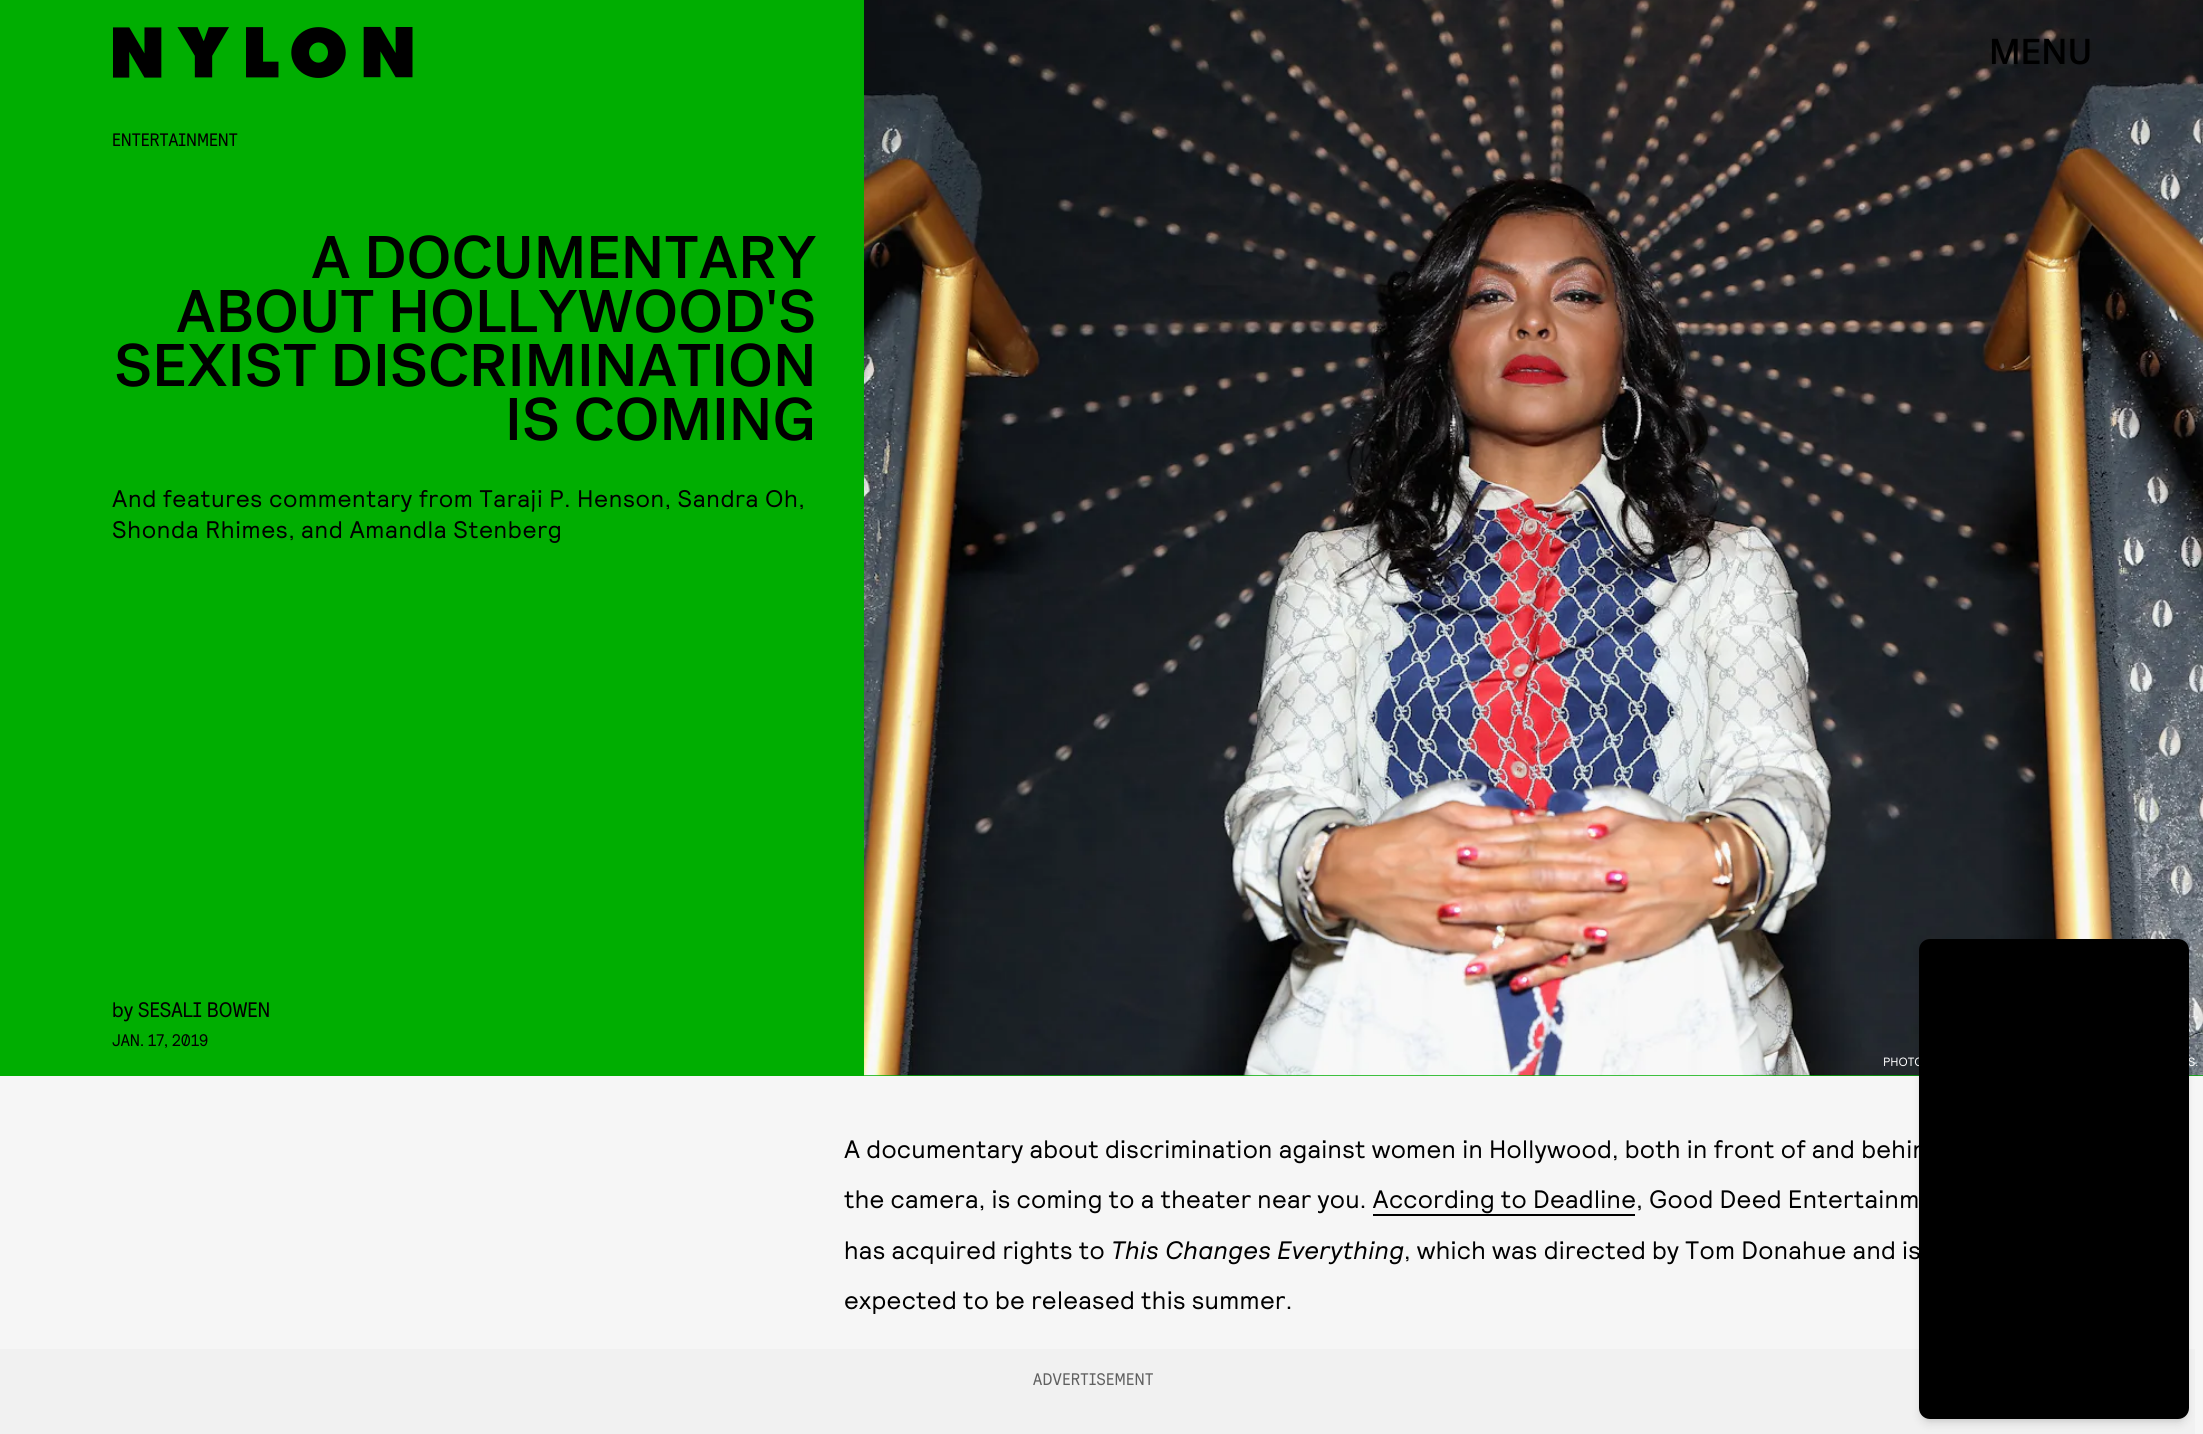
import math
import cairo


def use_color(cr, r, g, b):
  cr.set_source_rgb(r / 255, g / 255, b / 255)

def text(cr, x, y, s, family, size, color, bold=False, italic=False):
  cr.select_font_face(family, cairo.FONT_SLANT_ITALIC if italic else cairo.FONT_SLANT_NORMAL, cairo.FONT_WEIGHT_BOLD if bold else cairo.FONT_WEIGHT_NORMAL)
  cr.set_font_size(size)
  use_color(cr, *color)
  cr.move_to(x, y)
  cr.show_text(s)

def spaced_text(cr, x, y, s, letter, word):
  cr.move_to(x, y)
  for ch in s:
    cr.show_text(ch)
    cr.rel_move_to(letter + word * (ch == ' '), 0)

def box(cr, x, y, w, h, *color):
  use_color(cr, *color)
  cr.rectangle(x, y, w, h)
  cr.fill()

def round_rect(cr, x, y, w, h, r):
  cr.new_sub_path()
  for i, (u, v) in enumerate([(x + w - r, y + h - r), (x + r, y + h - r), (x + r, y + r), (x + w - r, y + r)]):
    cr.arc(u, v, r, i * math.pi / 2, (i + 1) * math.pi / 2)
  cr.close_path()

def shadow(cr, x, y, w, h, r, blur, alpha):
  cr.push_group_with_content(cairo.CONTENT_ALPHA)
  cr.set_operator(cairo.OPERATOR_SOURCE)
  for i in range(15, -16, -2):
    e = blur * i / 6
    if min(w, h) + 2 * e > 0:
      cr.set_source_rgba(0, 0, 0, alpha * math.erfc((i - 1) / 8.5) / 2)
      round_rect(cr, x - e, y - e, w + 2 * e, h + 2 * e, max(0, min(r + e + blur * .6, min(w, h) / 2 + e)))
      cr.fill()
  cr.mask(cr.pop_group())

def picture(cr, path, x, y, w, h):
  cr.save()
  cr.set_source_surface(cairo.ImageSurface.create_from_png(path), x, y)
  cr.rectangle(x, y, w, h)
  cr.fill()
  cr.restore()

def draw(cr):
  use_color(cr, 246, 246, 246)
  cr.paint()
  box(cr, 0, 0, 2203, 1076, 0, 174, 1)
  picture(cr, "img_01.png", 113, 26, 300, 52)
  picture(cr, "img_02.png", 864, 0, 1339, 1076)
  box(cr, 1373, 1214, 262, 2, 0, 0, 0)
  box(cr, 0, 1349, 2195, 85, 241, 241, 241)
  use_color(cr, 0, 0, 0)
  shadow(cr, 1922, 945, 264, 474, 8, 3, 0.1)
  shadow(cr, 1920, 947, 267, 477, 9, 4.5, 0.1)
  text(cr, 1989, 64, "MENU", "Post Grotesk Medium", 36, (0, 0, 0))
  text(cr, 112, 146, "ENTERTAINMENT", "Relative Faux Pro", 18, (0, 0, 0))
  text(cr, 311, 278, "A DOCUMENTARY", "Post Grotesk Medium", 60, (0, 0, 0))
  text(cr, 176, 332, "ABOUT HOLLYWOOD'S", "Post Grotesk Medium", 60, (0, 0, 0))
  text(cr, 114, 386, "SEXIST DISCRIMINATION", "Post Grotesk Medium", 60, (0, 0, 0))
  text(cr, 505, 440, "IS COMING", "Post Grotesk Medium", 60, (0, 0, 0))
  cr.select_font_face("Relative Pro")
  cr.set_font_size(24)
  spaced_text(cr, 112, 507, "And features commentary from Taraji P. Henson, Sandra Oh,", 0.6, 0)
  spaced_text(cr, 112, 538, "Shonda Rhimes, and Amandla Stenberg", 0.6, 0)
  text(cr, 112, 1017, "by SESALI BOWEN", "Relative Faux Pro", 21, (0, 0, 0))
  text(cr, 112, 1046, "JAN. 17, 2019", "Relative Faux Pro", 16.75, (0, 0, 0))
  text(cr, 1883, 1066, "PHOTO", "Relative Pro", 12, (255, 255, 255))
  text(cr, 2188, 1066, "S.", "Relative Pro", 12, (255, 255, 255))
  cr.set_font_size(25.2)
  use_color(cr, 0, 0, 0)
  spaced_text(cr, 844, 1158, "A documentary about discrimination against women in Hollywood, both in front of and behin", 0.3, 0)
  spaced_text(cr, 844, 1208, "the camera, is coming to a theater near you. According to Deadline, Good Deed Entertainm", 0.3, 0)
  spaced_text(cr, 844, 1259, "has acquired rights to", 0.3, 0)
  cr.select_font_face("Relative Pro", cairo.FONT_SLANT_ITALIC)
  spaced_text(cr, 1111, 1259, "This Changes Everything", 0.3, 0)
  cr.select_font_face("Relative Pro")
  spaced_text(cr, 1404, 1259, ", which was directed by Tom Donahue and is", 0.3, 0)
  spaced_text(cr, 844, 1309, "expected to be released this summer.", 0.3, 0)
  cr.select_font_face("Relative Faux Pro")
  cr.set_font_size(16.75)
  use_color(cr, 96, 96, 96)
  spaced_text(cr, 1033, 1385, "ADVERTISEMENT", 0.3, 0)
  use_color(cr, 0, 0, 0)
  round_rect(cr, 1919, 939, 270, 480, 11)
  cr.fill()


surface = cairo.ImageSurface(cairo.FORMAT_RGB24, 2203, 1434)
cr = cairo.Context(surface)
options = cairo.FontOptions()
options.set_hint_metrics(cairo.HINT_METRICS_OFF)
options.set_hint_style(cairo.HINT_STYLE_NONE)
cr.set_font_options(options)
cr.set_miter_limit(4)
draw(cr)
surface.write_to_png("out.png")
